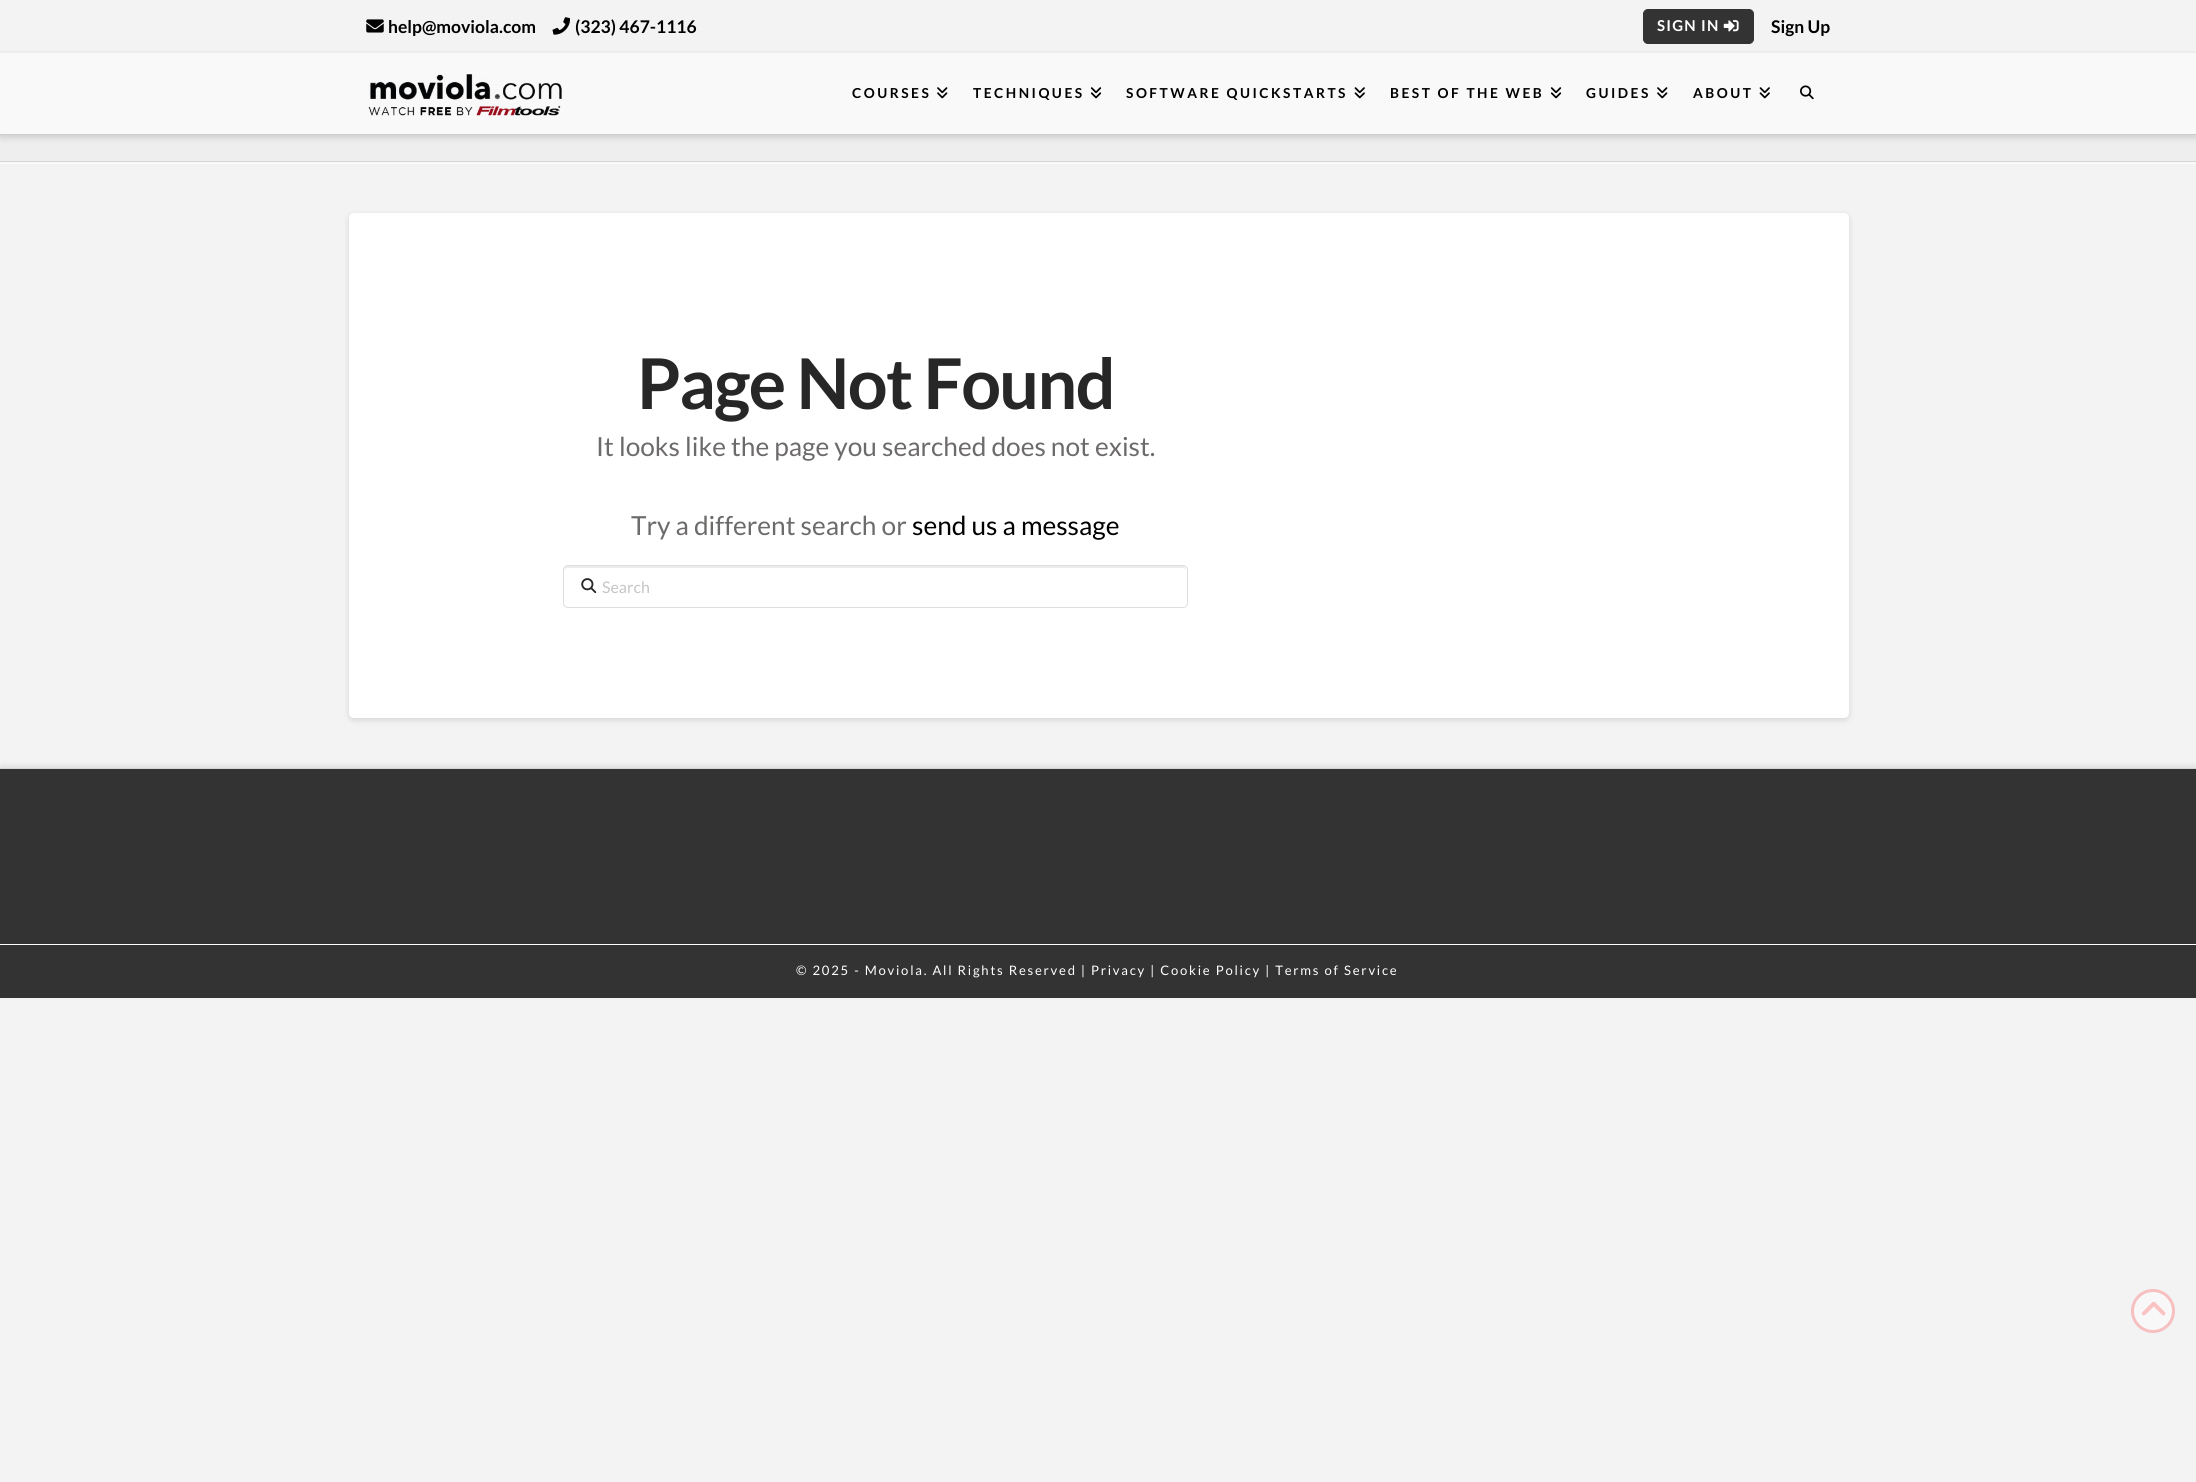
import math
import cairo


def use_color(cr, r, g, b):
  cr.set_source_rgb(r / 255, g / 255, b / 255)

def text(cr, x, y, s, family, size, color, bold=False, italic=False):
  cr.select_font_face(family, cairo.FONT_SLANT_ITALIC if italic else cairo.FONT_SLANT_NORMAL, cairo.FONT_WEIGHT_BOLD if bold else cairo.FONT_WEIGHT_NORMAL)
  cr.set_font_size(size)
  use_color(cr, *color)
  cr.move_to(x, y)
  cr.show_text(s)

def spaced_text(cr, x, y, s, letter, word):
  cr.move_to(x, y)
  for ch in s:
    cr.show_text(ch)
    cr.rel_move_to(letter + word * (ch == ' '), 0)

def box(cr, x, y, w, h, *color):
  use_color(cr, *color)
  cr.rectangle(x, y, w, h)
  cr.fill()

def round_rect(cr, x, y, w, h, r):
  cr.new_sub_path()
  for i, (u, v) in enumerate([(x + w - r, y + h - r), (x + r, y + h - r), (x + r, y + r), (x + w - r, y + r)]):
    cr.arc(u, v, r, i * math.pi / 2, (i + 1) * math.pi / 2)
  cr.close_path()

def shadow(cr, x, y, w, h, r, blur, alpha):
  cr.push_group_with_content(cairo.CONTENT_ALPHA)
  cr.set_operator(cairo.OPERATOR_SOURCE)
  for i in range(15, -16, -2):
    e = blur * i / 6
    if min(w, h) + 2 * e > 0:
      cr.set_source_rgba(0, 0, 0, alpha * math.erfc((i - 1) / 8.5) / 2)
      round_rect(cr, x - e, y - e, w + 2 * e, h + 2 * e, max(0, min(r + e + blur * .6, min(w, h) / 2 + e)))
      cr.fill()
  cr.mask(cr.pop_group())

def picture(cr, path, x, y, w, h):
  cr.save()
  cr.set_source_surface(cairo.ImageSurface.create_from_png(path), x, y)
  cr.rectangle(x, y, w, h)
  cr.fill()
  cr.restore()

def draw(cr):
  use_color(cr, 243, 243, 243)
  cr.paint()
  box(cr, 0, 135, 2196, 26, 238, 238, 238)
  picture(cr, "img_01.png", 366, 19, 18, 14)
  picture(cr, "img_02.png", 552, 17, 18, 18)
  use_color(cr, 51, 51, 51)
  round_rect(cr, 1643.5, 9.5, 110, 34, 4.5)
  cr.fill_preserve()
  cr.set_line_width(1)
  cr.stroke()
  picture(cr, "img_03.png", 1723, 20, 16, 12)
  use_color(cr, 0, 0, 0)
  shadow(cr, 0, 55, 2196, 83, 0, 3, 0.13)
  box(cr, 0, 53, 2196, 81, 249, 249, 249)
  box(cr, 0, 134, 2196, 1, 204, 204, 204)
  picture(cr, "img_04.png", 368, 74, 194, 42)
  picture(cr, "img_05.png", 937, 87, 11, 12)
  picture(cr, "img_06.png", 1090, 87, 12, 12)
  picture(cr, "img_07.png", 1354, 87, 11, 12)
  picture(cr, "img_06.png", 1550, 87, 12, 12)
  picture(cr, "img_05.png", 1657, 87, 11, 12)
  picture(cr, "img_07.png", 1759, 87, 11, 12)
  picture(cr, "img_08.png", 1800, 85, 14, 15)
  box(cr, 0, 163, 2196, 1, 252, 252, 252)
  box(cr, 0, 162, 2196, 1, 247, 247, 247)
  box(cr, 0, 161, 2196, 1, 214, 214, 214)
  use_color(cr, 0, 0, 0)
  shadow(cr, 349, 215, 1500, 505, 5, 3, 0.13)
  use_color(cr, 255, 255, 255)
  round_rect(cr, 349, 213, 1500, 505, 5)
  cr.fill()
  use_color(cr, 236, 236, 236)
  cr.new_path()
  cr.move_to(568, 568)
  cr.line_to(1182, 568)
  cr.curve_to(1185, 568, 1186, 569, 1186, 571)
  cr.line_to(1186, 570)
  cr.curve_to(1186, 568, 1184, 566, 1182, 566)
  cr.line_to(568, 566)
  cr.curve_to(566, 566, 564, 568, 564, 570)
  cr.line_to(564, 571)
  cr.curve_to(564, 569, 565, 568, 568, 568)
  cr.close_path()
  cr.fill()
  round_rect(cr, 563.5, 565.5, 624, 42, 4.5)
  use_color(cr, 221, 221, 221)
  cr.stroke()
  picture(cr, "img_09.png", 581, 578, 16, 16)
  use_color(cr, 0, 0, 0)
  shadow(cr, 0, 765, 2196, 176, 0, 2, 0.07)
  box(cr, 0, 769, 2196, 175, 51, 51, 51)
  box(cr, 0, 768, 2196, 1, 212, 212, 212)
  box(cr, 0, 945, 2196, 53, 51, 51, 51)
  box(cr, 0, 944, 2196, 1, 255, 255, 255)
  use_color(cr, 248, 248, 248)
  cr.arc(2153, 1311, 20.5, 0, 2 * math.pi)
  cr.fill_preserve()
  use_color(cr, 247, 191, 191)
  cr.set_line_width(3)
  cr.stroke()
  picture(cr, "img_10.png", 2142, 1301, 24, 15)
  text(cr, 388, 33, "help@moviola.com", "Lato", 17.5, (0, 0, 0), bold=True)
  text(cr, 575, 33, "(323) 467-1116", "Lato", 17.5, (0, 0, 0), bold=True)
  cr.set_font_size(15)
  use_color(cr, 255, 255, 255)
  spaced_text(cr, 1657, 31, "SIGN IN", 1.25, 0)
  text(cr, 1771, 33, "Sign Up", "Lato", 17.5, (0, 0, 0), bold=True)
  cr.set_font_size(13.75)
  spaced_text(cr, 852, 98, "COURSES", 2.5, 0)
  spaced_text(cr, 973, 98, "TECHNIQUES", 2.5, 0)
  spaced_text(cr, 1126, 98, "SOFTWARE QUICKSTARTS", 2.5, 0)
  spaced_text(cr, 1390, 98, "BEST OF THE WEB", 2.5, 0)
  spaced_text(cr, 1586, 98, "GUIDES", 2.5, 0)
  spaced_text(cr, 1693, 98, "ABOUT", 2.5, 0)
  cr.set_font_size(70)
  use_color(cr, 39, 39, 39)
  spaced_text(cr, 637, 409, "Page Not Found", -1.6, 0)
  text(cr, 596, 456, "It looks like the page you searched does not exist.", "Lato", 26.25, (109, 106, 106))
  text(cr, 631, 535, "Try a different search or", "Lato", 26.25, (109, 106, 106))
  text(cr, 912, 535, "send us a message", "Lato", 26.25, (0, 0, 0))
  text(cr, 602, 593, "Search", "Lato", 16, (197, 197, 197))
  cr.set_font_size(13.1)
  use_color(cr, 255, 255, 255)
  spaced_text(cr, 796, 975, "© 2025 - Moviola. All Rights Reserved | Privacy | Cookie Policy | Terms of Service", 1.75, 0)


surface = cairo.ImageSurface(cairo.FORMAT_RGB24, 2196, 1482)
cr = cairo.Context(surface)
options = cairo.FontOptions()
options.set_hint_metrics(cairo.HINT_METRICS_OFF)
options.set_hint_style(cairo.HINT_STYLE_NONE)
cr.set_font_options(options)
cr.set_miter_limit(4)
draw(cr)
surface.write_to_png("out.png")
